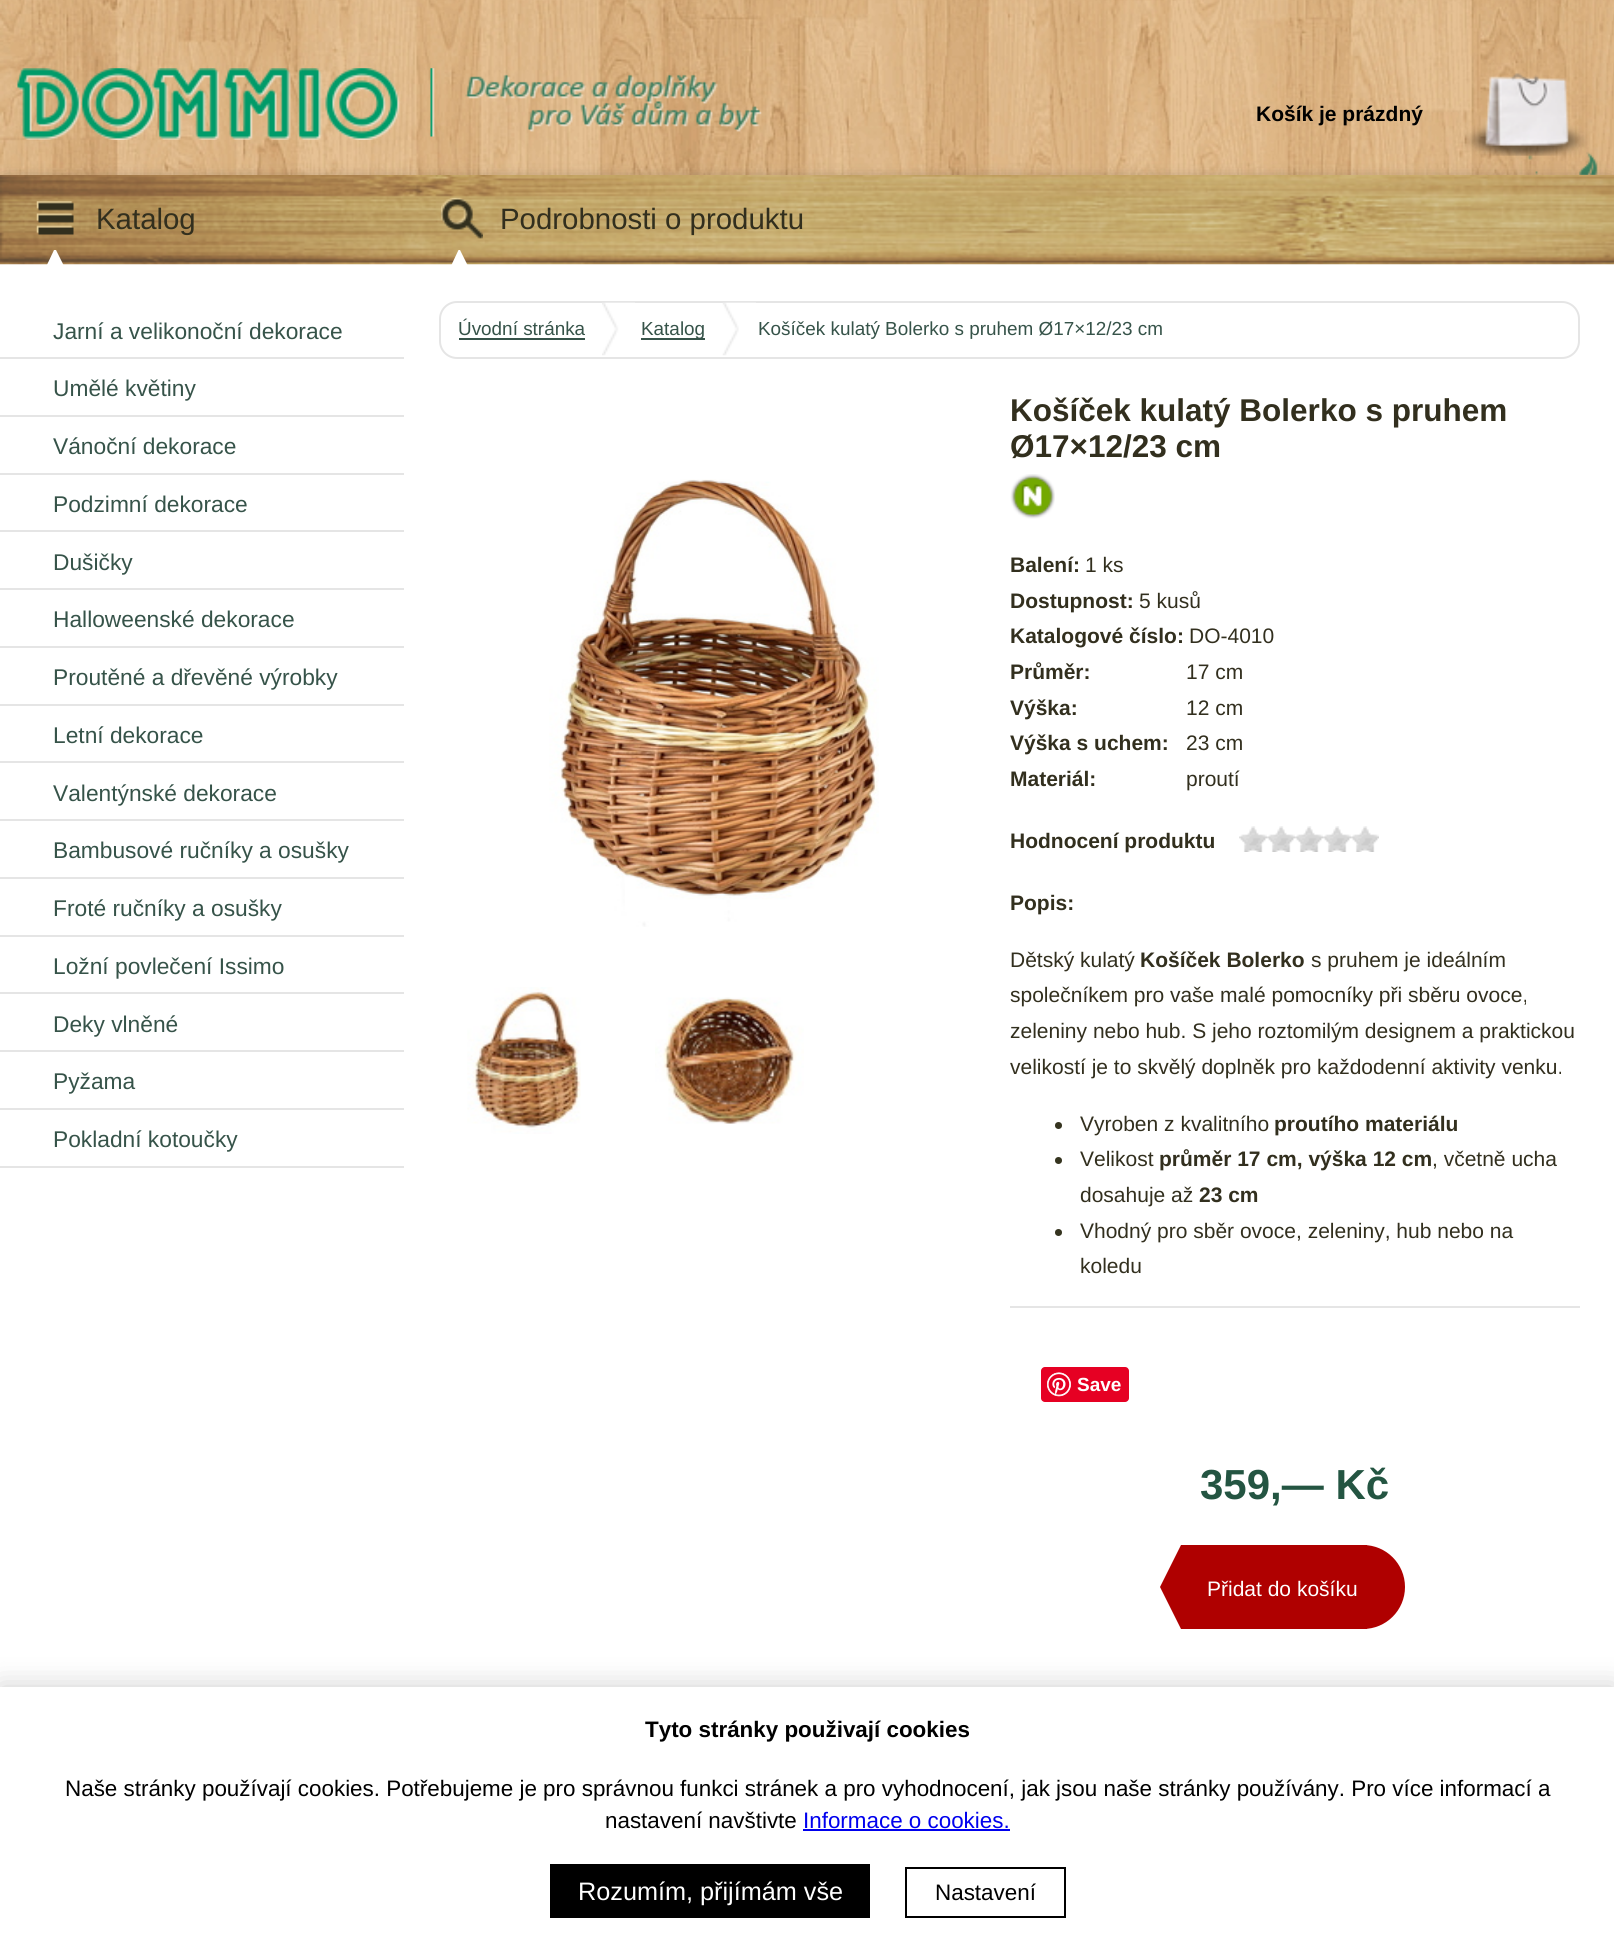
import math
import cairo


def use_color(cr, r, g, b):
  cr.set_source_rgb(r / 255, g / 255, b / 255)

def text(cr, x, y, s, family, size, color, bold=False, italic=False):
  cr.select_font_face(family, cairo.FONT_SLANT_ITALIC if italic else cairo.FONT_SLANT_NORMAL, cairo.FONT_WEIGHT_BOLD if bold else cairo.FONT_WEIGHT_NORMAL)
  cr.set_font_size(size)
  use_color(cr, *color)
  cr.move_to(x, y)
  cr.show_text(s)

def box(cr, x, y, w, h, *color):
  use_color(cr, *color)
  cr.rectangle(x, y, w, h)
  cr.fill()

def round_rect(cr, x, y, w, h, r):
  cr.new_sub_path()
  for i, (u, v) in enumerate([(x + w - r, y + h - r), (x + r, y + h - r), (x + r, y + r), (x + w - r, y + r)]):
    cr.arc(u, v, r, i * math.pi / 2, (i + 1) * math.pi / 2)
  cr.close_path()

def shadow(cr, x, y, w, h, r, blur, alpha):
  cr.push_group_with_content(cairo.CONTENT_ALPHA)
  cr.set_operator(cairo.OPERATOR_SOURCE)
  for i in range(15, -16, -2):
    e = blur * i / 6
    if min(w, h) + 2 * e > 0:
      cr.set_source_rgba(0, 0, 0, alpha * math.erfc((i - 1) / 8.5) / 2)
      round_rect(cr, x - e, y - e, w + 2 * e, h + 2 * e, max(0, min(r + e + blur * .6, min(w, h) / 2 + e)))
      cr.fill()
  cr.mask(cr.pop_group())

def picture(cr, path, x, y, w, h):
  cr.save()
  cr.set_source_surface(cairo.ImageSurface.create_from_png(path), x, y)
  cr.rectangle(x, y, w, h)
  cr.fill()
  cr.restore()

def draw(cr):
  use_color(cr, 255, 255, 255)
  cr.paint()
  picture(cr, "img_01.png", 0, 0, 1614, 175)
  picture(cr, "img_02.png", 17, 68, 745, 72)
  picture(cr, "img_03.png", 1462, 73, 128, 83)
  use_color(cr, 51, 51, 51)
  shadow(cr, 5, 186, 1605, 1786, 0, 9, 1)
  box(cr, 0, 264, 1614, 1423, 255, 255, 255)
  picture(cr, "img_04.png", 0, 175, 1614, 90)
  picture(cr, "img_05.png", 36, 201, 38, 34)
  cr.save()
  cr.rectangle(0, 175, 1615, 91)
  cr.clip()
  cr.new_path()
  cr.move_to(65, 268)
  cr.line_to(45.5, 268)
  cr.line_to(54, 250)
  cr.line_to(56, 250)
  cr.close_path()
  cr.fill()
  cr.restore()
  picture(cr, "img_06.png", 441, 197, 42, 42)
  cr.save()
  cr.rectangle(0, 175, 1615, 91)
  cr.clip()
  cr.new_path()
  cr.move_to(469, 268)
  cr.line_to(450, 268)
  cr.line_to(458.5, 250)
  cr.line_to(460, 250)
  cr.close_path()
  cr.fill()
  cr.restore()
  box(cr, 0, 357, 404, 2, 229, 229, 229)
  box(cr, 0, 415, 404, 2, 229, 229, 229)
  box(cr, 0, 473, 404, 2, 229, 229, 229)
  box(cr, 0, 530, 404, 2, 229, 229, 229)
  box(cr, 0, 588, 404, 2, 229, 229, 229)
  box(cr, 0, 646, 404, 2, 229, 229, 229)
  box(cr, 0, 704, 404, 2, 229, 229, 229)
  box(cr, 0, 761, 404, 2, 229, 229, 229)
  box(cr, 0, 819, 404, 2, 229, 229, 229)
  box(cr, 0, 877, 404, 2, 229, 229, 229)
  box(cr, 0, 935, 404, 2, 229, 229, 229)
  box(cr, 0, 992, 404, 2, 229, 229, 229)
  box(cr, 0, 1050, 404, 2, 229, 229, 229)
  box(cr, 0, 1108, 404, 2, 229, 229, 229)
  box(cr, 0, 1166, 404, 2, 229, 229, 229)
  round_rect(cr, 440, 302, 1139, 56, 17)
  cr.stroke()
  box(cr, 459, 338, 126, 2, 54, 83, 73)
  picture(cr, "img_07.png", 602, 302, 33, 54)
  box(cr, 641, 338, 64, 2, 54, 83, 73)
  picture(cr, "img_08.png", 722, 302, 34, 54)
  picture(cr, "img_09.png", 549, 479, 330, 448)
  picture(cr, "img_10.png", 467, 987, 114, 147)
  picture(cr, "img_11.png", 655, 997, 149, 127)
  picture(cr, "img_12.png", 1010, 474, 45, 45)
  picture(cr, "img_13.png", 1239, 826, 28, 26)
  picture(cr, "img_13.png", 1267, 826, 28, 26)
  picture(cr, "img_14.png", 1295, 826, 28, 26)
  picture(cr, "img_13.png", 1323, 826, 28, 26)
  picture(cr, "img_15.png", 1351, 826, 28, 26)
  box(cr, 1010, 1306, 570, 2, 229, 229, 229)
  use_color(cr, 53, 52, 31)
  cr.arc(1058.5, 1125.5, 3.5, 0, 2 * math.pi)
  cr.fill()
  cr.arc(1058.5, 1160.5, 3.5, 0, 2 * math.pi)
  cr.fill()
  cr.arc(1058.5, 1232.5, 3.5, 0, 2 * math.pi)
  cr.fill()
  use_color(cr, 230, 0, 35)
  round_rect(cr, 1041, 1367, 88, 35, 4)
  cr.fill()
  picture(cr, "img_16.png", 1047, 1372, 24, 25)
  box(cr, 1181, 1545, 186, 84, 175, 0, 0)
  cr.new_path()
  cr.move_to(1181, 1545)
  cr.line_to(1181, 1629)
  cr.line_to(1160, 1587)
  cr.close_path()
  cr.fill()
  cr.arc(1363, 1587, 42, 0, 2 * math.pi)
  cr.fill()
  use_color(cr, 0, 0, 0)
  shadow(cr, 0, 1687, 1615, 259, 0, 14, 0.2)
  box(cr, 0, 1687, 1614, 258, 255, 255, 255)
  box(cr, 803, 1829, 207, 2, 0, 0, 238)
  box(cr, 550, 1864, 320, 54, 0, 0, 0)
  cr.rectangle(906, 1868, 159, 49)
  cr.stroke()
  text(cr, 1256, 121, "Košík je prázdný", "Liberation Sans", 21, (0, 0, 0), bold=True)
  text(cr, 96, 229, "Katalog", "Liberation Sans", 29.4, (50, 47, 30))
  text(cr, 500, 229, "Podrobnosti o produktu", "Liberation Sans", 29.4, (50, 47, 30))
  text(cr, 53, 339, "Jarní a velikonoční dekorace", "Liberation Sans", 22.75, (54, 83, 73))
  text(cr, 53, 396, "Umělé květiny", "Liberation Sans", 22.75, (54, 83, 73))
  text(cr, 53, 454, "Vánoční dekorace", "Liberation Sans", 22.75, (54, 83, 73))
  text(cr, 53, 512, "Podzimní dekorace", "Liberation Sans", 22.75, (54, 83, 73))
  text(cr, 53, 570, "Dušičky", "Liberation Sans", 22.75, (54, 83, 73))
  text(cr, 53, 627, "Halloweenské dekorace", "Liberation Sans", 22.75, (54, 83, 73))
  text(cr, 53, 685, "Proutěné a dřevěné výrobky", "Liberation Sans", 22.75, (54, 83, 73))
  text(cr, 53, 743, "Letní dekorace", "Liberation Sans", 22.75, (54, 83, 73))
  text(cr, 53, 801, "Valentýnské dekorace", "Liberation Sans", 22.75, (54, 83, 73))
  text(cr, 53, 858, "Bambusové ručníky a osušky", "Liberation Sans", 22.75, (54, 83, 73))
  text(cr, 53, 916, "Froté ručníky a osušky", "Liberation Sans", 22.75, (54, 83, 73))
  text(cr, 53, 974, "Ložní povlečení Issimo", "Liberation Sans", 22.75, (54, 83, 73))
  text(cr, 53, 1032, "Deky vlněné", "Liberation Sans", 22.75, (54, 83, 73))
  text(cr, 53, 1089, "Pyžama", "Liberation Sans", 22.75, (54, 83, 73))
  text(cr, 53, 1147, "Pokladní kotoučky", "Liberation Sans", 22.75, (54, 83, 73))
  text(cr, 458, 335, "Úvodní stránka", "Liberation Sans", 18.9, (54, 83, 73))
  text(cr, 641, 335, "Katalog", "Liberation Sans", 18.9, (54, 83, 73))
  text(cr, 758, 335, "Košíček kulatý Bolerko s pruhem Ø17×12/23 cm", "Liberation Sans", 18.9, (54, 83, 73))
  text(cr, 1010, 421, "Košíček kulatý Bolerko s pruhem", "Liberation Sans", 31.5, (50, 47, 30), bold=True)
  text(cr, 1010, 457, "Ø17×12/23 cm", "Liberation Sans", 31.5, (50, 47, 30), bold=True)
  text(cr, 1010, 572, "Balení:", "Liberation Sans", 21, (50, 47, 30), bold=True)
  text(cr, 1085, 572, "1 ks", "Liberation Sans", 21, (50, 47, 30))
  text(cr, 1010, 608, "Dostupnost:", "Liberation Sans", 21, (50, 47, 30), bold=True)
  text(cr, 1139, 608, "5 kusů", "Liberation Sans", 21, (50, 47, 30))
  text(cr, 1010, 643, "Katalogové číslo:", "Liberation Sans", 21, (50, 47, 30), bold=True)
  text(cr, 1189, 643, "DO-4010", "Liberation Sans", 21, (50, 47, 30))
  text(cr, 1010, 679, "Průměr:", "Liberation Sans", 21, (50, 47, 30), bold=True)
  text(cr, 1186, 679, "17 cm", "Liberation Sans", 21, (50, 47, 30))
  text(cr, 1010, 715, "Výška:", "Liberation Sans", 21, (50, 47, 30), bold=True)
  text(cr, 1186, 715, "12 cm", "Liberation Sans", 21, (50, 47, 30))
  text(cr, 1010, 750, "Výška s uchem:", "Liberation Sans", 21, (50, 47, 30), bold=True)
  text(cr, 1186, 750, "23 cm", "Liberation Sans", 21, (50, 47, 30))
  text(cr, 1010, 786, "Materiál:", "Liberation Sans", 21, (50, 47, 30), bold=True)
  text(cr, 1186, 786, "proutí", "Liberation Sans", 21, (50, 47, 30))
  text(cr, 1010, 848, "Hodnocení produktu", "Liberation Sans", 21, (50, 47, 30), bold=True)
  text(cr, 1010, 910, "Popis:", "Liberation Sans", 21, (50, 47, 30), bold=True)
  text(cr, 1010, 967, "Dětský kulatý", "Liberation Sans", 21, (50, 47, 30))
  text(cr, 1140, 967, "Košíček Bolerko", "Liberation Sans", 21, (50, 47, 30), bold=True)
  text(cr, 1311, 967, "s pruhem je ideálním", "Liberation Sans", 21, (50, 47, 30))
  text(cr, 1010, 1002, "společníkem pro vaše malé pomocníky při sběru ovoce,", "Liberation Sans", 21, (50, 47, 30))
  text(cr, 1010, 1038, "zeleniny nebo hub. S jeho roztomilým designem a praktickou", "Liberation Sans", 21, (50, 47, 30))
  text(cr, 1010, 1074, "velikostí je to skvělý doplněk pro každodenní aktivity venku.", "Liberation Sans", 21, (50, 47, 30))
  text(cr, 1080, 1131, "Vyroben z kvalitního", "Liberation Sans", 21, (50, 47, 30))
  text(cr, 1274, 1131, "proutího materiálu", "Liberation Sans", 21, (50, 47, 30), bold=True)
  text(cr, 1080, 1166, "Velikost", "Liberation Sans", 21, (50, 47, 30))
  text(cr, 1159, 1166, "průměr 17 cm, výška 12 cm", "Liberation Sans", 21, (50, 47, 30), bold=True)
  text(cr, 1432, 1166, ", včetně ucha", "Liberation Sans", 21, (50, 47, 30))
  text(cr, 1080, 1202, "dosahuje až", "Liberation Sans", 21, (50, 47, 30))
  text(cr, 1199, 1202, "23 cm", "Liberation Sans", 21, (50, 47, 30), bold=True)
  text(cr, 1080, 1238, "Vhodný pro sběr ovoce, zeleniny, hub nebo na", "Liberation Sans", 21, (50, 47, 30))
  text(cr, 1080, 1273, "koledu", "Liberation Sans", 21, (50, 47, 30))
  text(cr, 1077, 1391, "Save", "Liberation Sans", 19, (255, 255, 255), bold=True)
  text(cr, 1200, 1499, "359,— Kč", "Liberation Sans", 42, (36, 85, 66), bold=True)
  text(cr, 1207, 1596, "Přidat do košíku", "Liberation Sans", 21, (255, 255, 255))
  text(cr, 645, 1737, "Tyto stránky použivají cookies", "Liberation Sans", 22.4, (0, 0, 0), bold=True)
  text(cr, 65, 1796, "Naše stránky používají cookies. Potřebujeme je pro správnou funkci stránek a pro vyhodnocení, jak jsou naše stránky používány. Pro více informací a", "Liberation Sans", 22.4, (0, 0, 0))
  text(cr, 605, 1828, "nastavení navštivte", "Liberation Sans", 22.4, (0, 0, 0))
  text(cr, 803, 1828, "Informace o cookies.", "Liberation Sans", 22.4, (0, 0, 238))
  text(cr, 578, 1900, "Rozumím, přijímám vše", "Liberation Sans", 25.25, (255, 255, 255))
  text(cr, 935, 1900, "Nastavení", "Liberation Sans", 22.4, (0, 0, 0))


surface = cairo.ImageSurface(cairo.FORMAT_RGB24, 1614, 1945)
cr = cairo.Context(surface)
options = cairo.FontOptions()
options.set_hint_metrics(cairo.HINT_METRICS_OFF)
options.set_hint_style(cairo.HINT_STYLE_NONE)
cr.set_font_options(options)
cr.set_miter_limit(4)
draw(cr)
surface.write_to_png("out.png")
